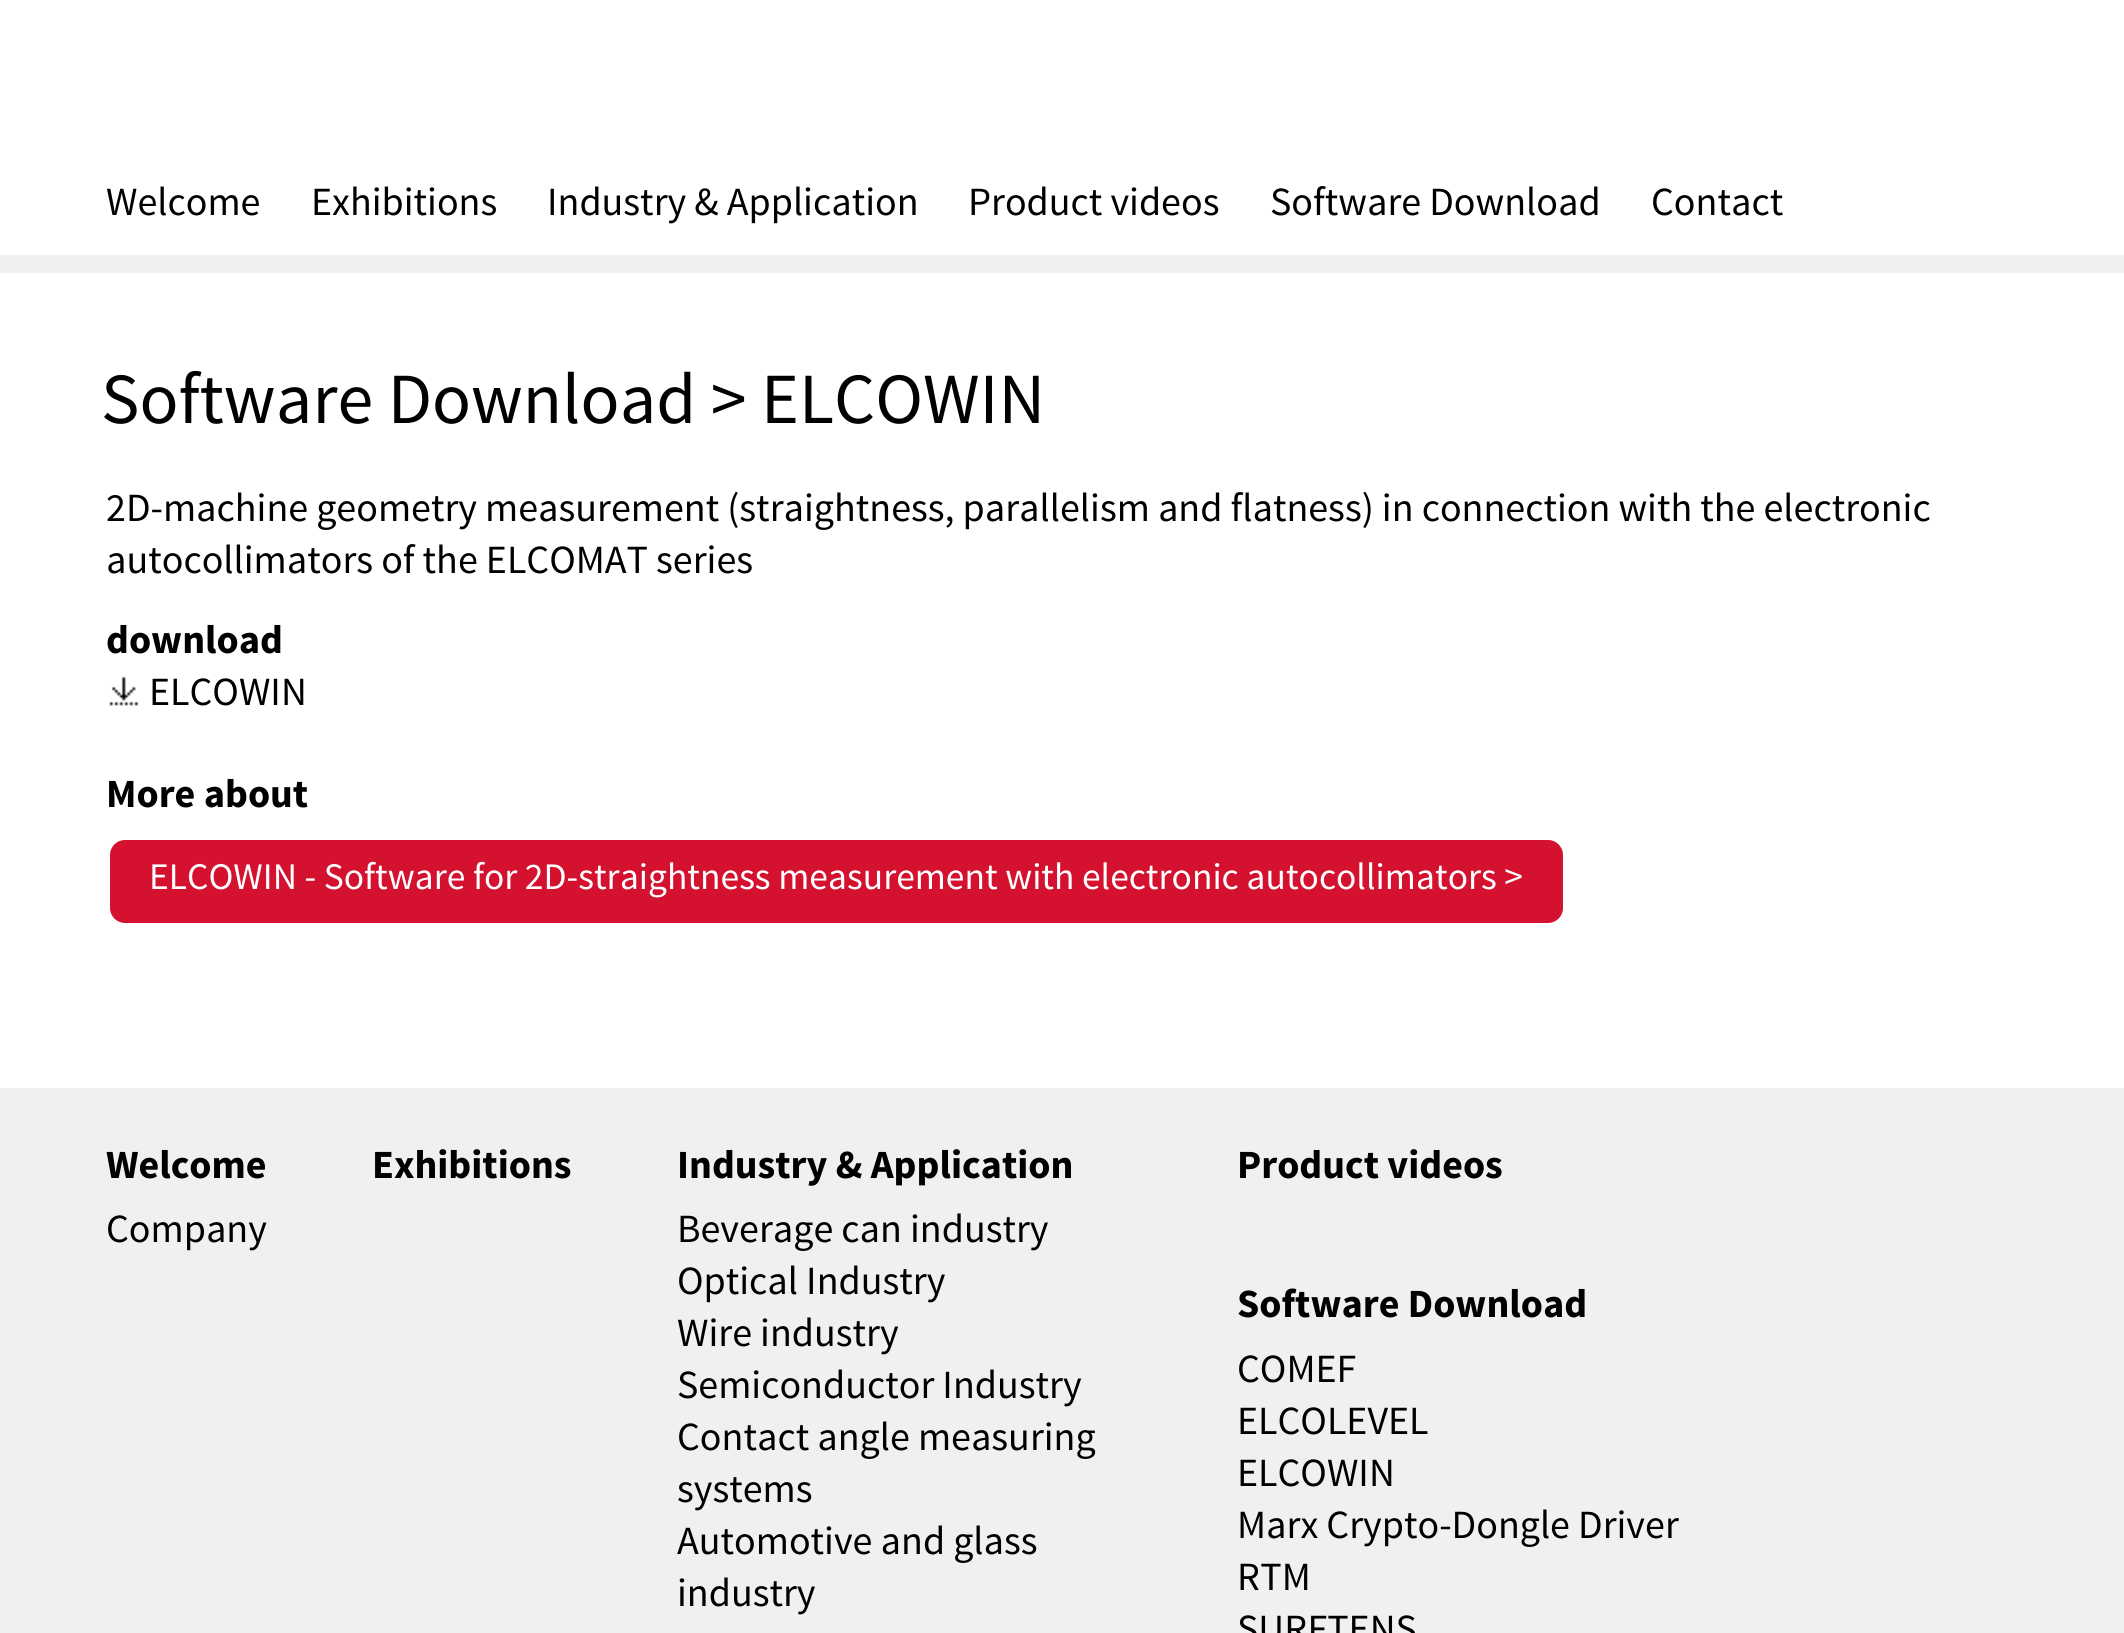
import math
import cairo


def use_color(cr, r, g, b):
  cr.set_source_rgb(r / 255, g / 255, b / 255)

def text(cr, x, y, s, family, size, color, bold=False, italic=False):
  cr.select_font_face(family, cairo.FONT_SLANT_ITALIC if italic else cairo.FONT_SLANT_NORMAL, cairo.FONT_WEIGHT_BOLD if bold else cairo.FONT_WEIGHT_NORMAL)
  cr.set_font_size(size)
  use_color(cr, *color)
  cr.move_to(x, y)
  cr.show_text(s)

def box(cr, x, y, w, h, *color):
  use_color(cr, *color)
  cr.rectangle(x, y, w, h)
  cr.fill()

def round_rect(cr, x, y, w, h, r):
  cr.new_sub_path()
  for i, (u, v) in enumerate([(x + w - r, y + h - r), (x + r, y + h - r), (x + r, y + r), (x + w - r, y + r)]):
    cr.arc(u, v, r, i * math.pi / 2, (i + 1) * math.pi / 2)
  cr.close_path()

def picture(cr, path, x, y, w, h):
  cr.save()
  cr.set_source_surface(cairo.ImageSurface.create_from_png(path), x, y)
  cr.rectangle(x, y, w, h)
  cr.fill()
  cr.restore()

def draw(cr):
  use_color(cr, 240, 240, 240)
  cr.paint()
  box(cr, 0, 0, 2124, 255, 255, 255, 255)
  box(cr, 0, 273, 2124, 815, 255, 255, 255)
  picture(cr, "img_01.png", 109, 676, 30, 30)
  use_color(cr, 213, 17, 48)
  round_rect(cr, 110, 840, 1453, 83, 15)
  cr.fill()
  text(cr, 106, 215, "Welcome", "Source Sans Pro", 40, (0, 0, 0))
  text(cr, 311, 215, "Exhibitions", "Source Sans Pro", 40, (0, 0, 0))
  text(cr, 547, 215, "Industry & Application", "Source Sans Pro", 40, (0, 0, 0))
  text(cr, 968, 215, "Product videos", "Source Sans Pro", 40, (0, 0, 0))
  text(cr, 1270, 215, "Software Download", "Source Sans Pro", 40, (0, 0, 0))
  text(cr, 1651, 215, "Contact", "Source Sans Pro", 40, (0, 0, 0))
  text(cr, 101, 423, "Software Download > ELCOWIN", "Source Sans Pro", 72, (0, 0, 0))
  text(cr, 106, 521, "2D-machine geometry measurement (straightness, parallelism and flatness) in connection with the electronic", "Source Sans Pro", 40, (0, 0, 0))
  text(cr, 106, 573, "autocollimators of the ELCOMAT series", "Source Sans Pro", 40, (0, 0, 0))
  text(cr, 106, 653, "download", "Source Sans Pro", 40, (0, 0, 0), bold=True)
  text(cr, 149, 705, "ELCOWIN", "Source Sans Pro", 40, (0, 0, 0))
  text(cr, 106, 807, "More about", "Source Sans Pro", 40, (0, 0, 0), bold=True)
  text(cr, 149, 889, "ELCOWIN - Software for 2D-straightness measurement with electronic autocollimators >", "Source Sans Pro", 37.5, (255, 255, 255))
  text(cr, 106, 1178, "Welcome", "Source Sans Pro", 40, (0, 0, 0), bold=True)
  text(cr, 106, 1242, "Company", "Source Sans Pro", 40, (0, 0, 0))
  text(cr, 372, 1178, "Exhibitions", "Source Sans Pro", 40, (0, 0, 0), bold=True)
  text(cr, 677, 1178, "Industry & Application", "Source Sans Pro", 40, (0, 0, 0), bold=True)
  text(cr, 677, 1242, "Beverage can industry", "Source Sans Pro", 40, (0, 0, 0))
  text(cr, 677, 1294, "Optical Industry", "Source Sans Pro", 40, (0, 0, 0))
  text(cr, 677, 1346, "Wire industry", "Source Sans Pro", 40, (0, 0, 0))
  text(cr, 677, 1398, "Semiconductor Industry", "Source Sans Pro", 40, (0, 0, 0))
  text(cr, 677, 1450, "Contact angle measuring", "Source Sans Pro", 40, (0, 0, 0))
  text(cr, 677, 1502, "systems", "Source Sans Pro", 40, (0, 0, 0))
  text(cr, 677, 1554, "Automotive and glass", "Source Sans Pro", 40, (0, 0, 0))
  text(cr, 677, 1606, "industry", "Source Sans Pro", 40, (0, 0, 0))
  text(cr, 1237, 1178, "Product videos", "Source Sans Pro", 40, (0, 0, 0), bold=True)
  text(cr, 1237, 1317, "Software Download", "Source Sans Pro", 40, (0, 0, 0), bold=True)
  text(cr, 1237, 1382, "COMEF", "Source Sans Pro", 40, (0, 0, 0))
  text(cr, 1237, 1434, "ELCOLEVEL", "Source Sans Pro", 40, (0, 0, 0))
  text(cr, 1237, 1486, "ELCOWIN", "Source Sans Pro", 40, (0, 0, 0))
  text(cr, 1237, 1538, "Marx Crypto-Dongle Driver", "Source Sans Pro", 40, (0, 0, 0))
  text(cr, 1237, 1590, "RTM", "Source Sans Pro", 40, (0, 0, 0))
  text(cr, 1237, 1642, "SURFTENS", "Source Sans Pro", 40, (0, 0, 0))


surface = cairo.ImageSurface(cairo.FORMAT_RGB24, 2124, 1633)
cr = cairo.Context(surface)
options = cairo.FontOptions()
options.set_hint_metrics(cairo.HINT_METRICS_OFF)
options.set_hint_style(cairo.HINT_STYLE_NONE)
cr.set_font_options(options)
cr.set_miter_limit(4)
draw(cr)
surface.write_to_png("out.png")
